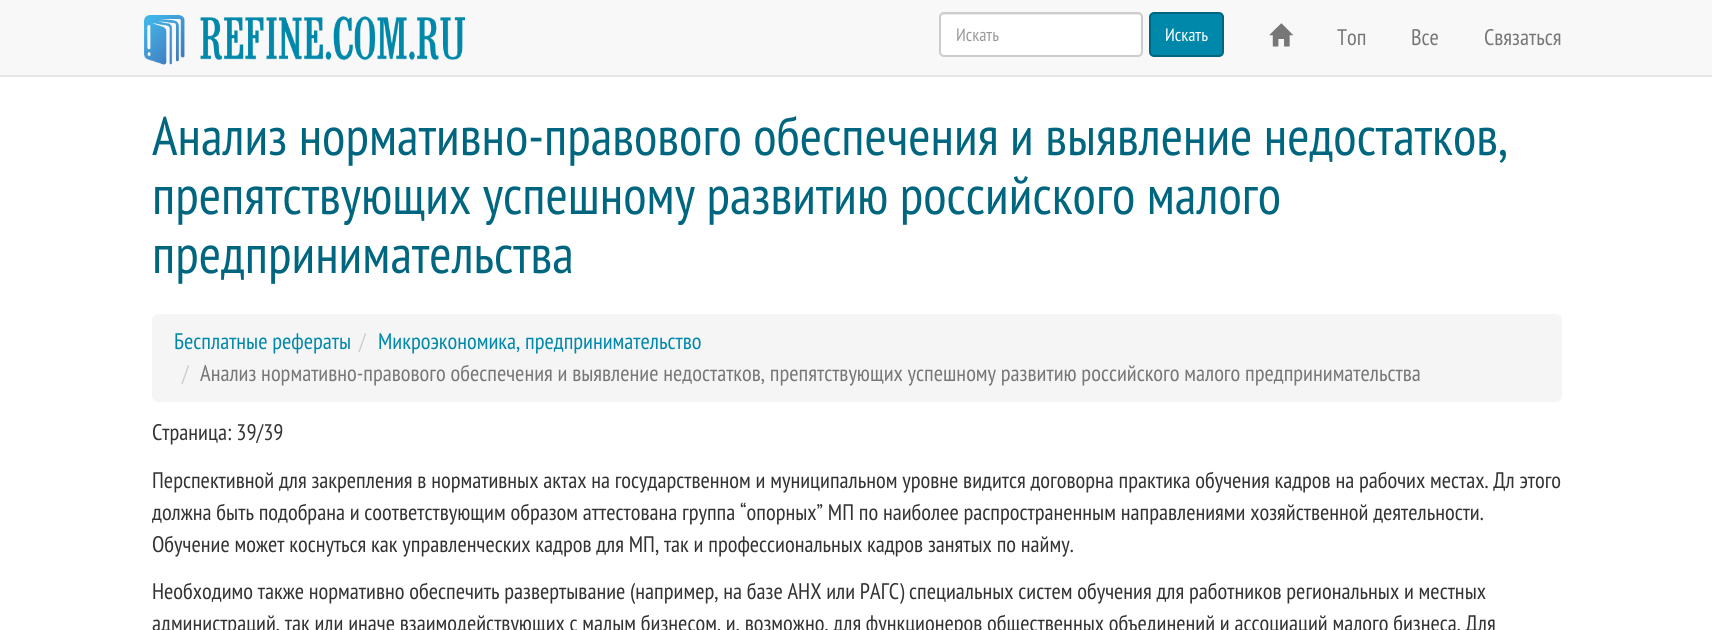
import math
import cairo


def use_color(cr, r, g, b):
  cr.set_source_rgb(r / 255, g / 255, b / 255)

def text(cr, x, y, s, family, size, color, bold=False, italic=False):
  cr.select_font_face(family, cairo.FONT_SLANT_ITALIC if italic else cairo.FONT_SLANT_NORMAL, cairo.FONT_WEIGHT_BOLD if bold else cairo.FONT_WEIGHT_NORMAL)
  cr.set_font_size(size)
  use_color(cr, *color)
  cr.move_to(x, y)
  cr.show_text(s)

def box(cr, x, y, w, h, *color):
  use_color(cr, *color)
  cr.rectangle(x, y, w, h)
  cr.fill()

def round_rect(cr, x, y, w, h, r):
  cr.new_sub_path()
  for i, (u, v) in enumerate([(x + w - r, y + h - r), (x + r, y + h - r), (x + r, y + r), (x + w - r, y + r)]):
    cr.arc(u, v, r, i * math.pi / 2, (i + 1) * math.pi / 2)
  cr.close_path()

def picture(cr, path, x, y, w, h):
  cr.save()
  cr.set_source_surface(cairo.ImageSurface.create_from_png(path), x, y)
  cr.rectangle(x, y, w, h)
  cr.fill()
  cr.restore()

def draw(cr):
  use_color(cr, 255, 255, 255)
  cr.paint()
  box(cr, 0, 0, 1712, 75, 248, 248, 248)
  box(cr, 0, 75, 1712, 2, 231, 231, 231)
  picture(cr, "img_01.png", 144, 15, 321, 50)
  use_color(cr, 255, 255, 255)
  round_rect(cr, 939, 12, 204, 45, 5)
  cr.fill()
  use_color(cr, 236, 236, 236)
  cr.new_path()
  cr.move_to(944, 15)
  cr.line_to(1138, 15)
  cr.curve_to(1140, 15, 1142, 16, 1142, 18)
  cr.line_to(1142, 17)
  cr.curve_to(1142, 15, 1141, 14, 1139, 14)
  cr.line_to(944, 14)
  cr.curve_to(943, 14, 942, 15, 941, 16)
  cr.close_path()
  cr.fill()
  round_rect(cr, 940, 13, 202, 43, 4)
  use_color(cr, 204, 204, 204)
  cr.stroke()
  use_color(cr, 0, 136, 170)
  round_rect(cr, 1150, 13, 73, 43, 4)
  cr.fill_preserve()
  use_color(cr, 0, 102, 128)
  cr.stroke()
  picture(cr, "img_02.png", 1269, 23, 24, 24)
  use_color(cr, 245, 245, 245)
  round_rect(cr, 152, 314, 1410, 88, 6)
  cr.fill()
  text(cr, 956, 41, "Искать", "PT Sans Narrow", 18, (153, 153, 153))
  text(cr, 1165, 41, "Искать", "PT Sans Narrow", 18, (255, 255, 255))
  text(cr, 1337, 45, "Топ", "PT Sans Narrow", 22.5, (119, 119, 119))
  text(cr, 1411, 45, "Все", "PT Sans Narrow", 22.5, (119, 119, 119))
  text(cr, 1484, 45, "Связаться", "PT Sans Narrow", 22.5, (119, 119, 119))
  text(cr, 152, 155, "Анализ нормативно-правового обеспечения и выявление недостатков,", "PT Sans Narrow", 54, (0, 102, 128))
  text(cr, 152, 214, "препятствующих успешному развитию российского малого", "PT Sans Narrow", 54, (0, 102, 128))
  text(cr, 152, 273, "предпринимательства", "PT Sans Narrow", 54, (0, 102, 128))
  text(cr, 174, 349, "Бесплатные рефераты", "PT Sans Narrow", 22.5, (0, 136, 170))
  text(cr, 359, 349, "/", "PT Sans Narrow", 22.5, (204, 204, 204))
  text(cr, 378, 349, "Микроэкономика, предпринимательство", "PT Sans Narrow", 22.5, (0, 136, 170))
  text(cr, 182, 381, "/", "PT Sans Narrow", 22.5, (204, 204, 204))
  text(cr, 200, 381, "Анализ нормативно-правового обеспечения и выявление недостатков, препятствующих успешному развитию российского малого предпринимательства", "PT Sans Narrow", 22.5, (119, 119, 119))
  text(cr, 152, 440, "Страница: 39/39", "PT Sans Narrow", 22.5, (51, 51, 51))
  text(cr, 152, 488, "Перспективной для закрепления в нормативных актах на государственном и муниципальном уровне видится договорна практика обучения кадров на рабочих местах. Дл этого", "PT Sans Narrow", 22.5, (51, 51, 51))
  text(cr, 152, 520, "должна быть подобрана и соответствующим образом аттестована группа “опорных” МП по наиболее распространенным направлениями хозяйственной деятельности.", "PT Sans Narrow", 22.5, (51, 51, 51))
  text(cr, 152, 552, "Обучение может коснуться как управленческих кадров для МП, так и профессиональных кадров занятых по найму.", "PT Sans Narrow", 22.5, (51, 51, 51))
  text(cr, 152, 599, "Необходимо также нормативно обеспечить развертывание (например, на базе АНХ или РАГС) специальных систем обучения для работников региональных и местных", "PT Sans Narrow", 22.5, (51, 51, 51))
  text(cr, 152, 631, "администраций, так или иначе взаимодействующих с малым бизнесом, и, возможно, для функционеров общественных объединений и ассоциаций малого бизнеса. Для", "PT Sans Narrow", 22.5, (51, 51, 51))


surface = cairo.ImageSurface(cairo.FORMAT_RGB24, 1712, 630)
cr = cairo.Context(surface)
options = cairo.FontOptions()
options.set_hint_metrics(cairo.HINT_METRICS_OFF)
options.set_hint_style(cairo.HINT_STYLE_NONE)
cr.set_font_options(options)
cr.set_miter_limit(4)
draw(cr)
surface.write_to_png("out.png")
